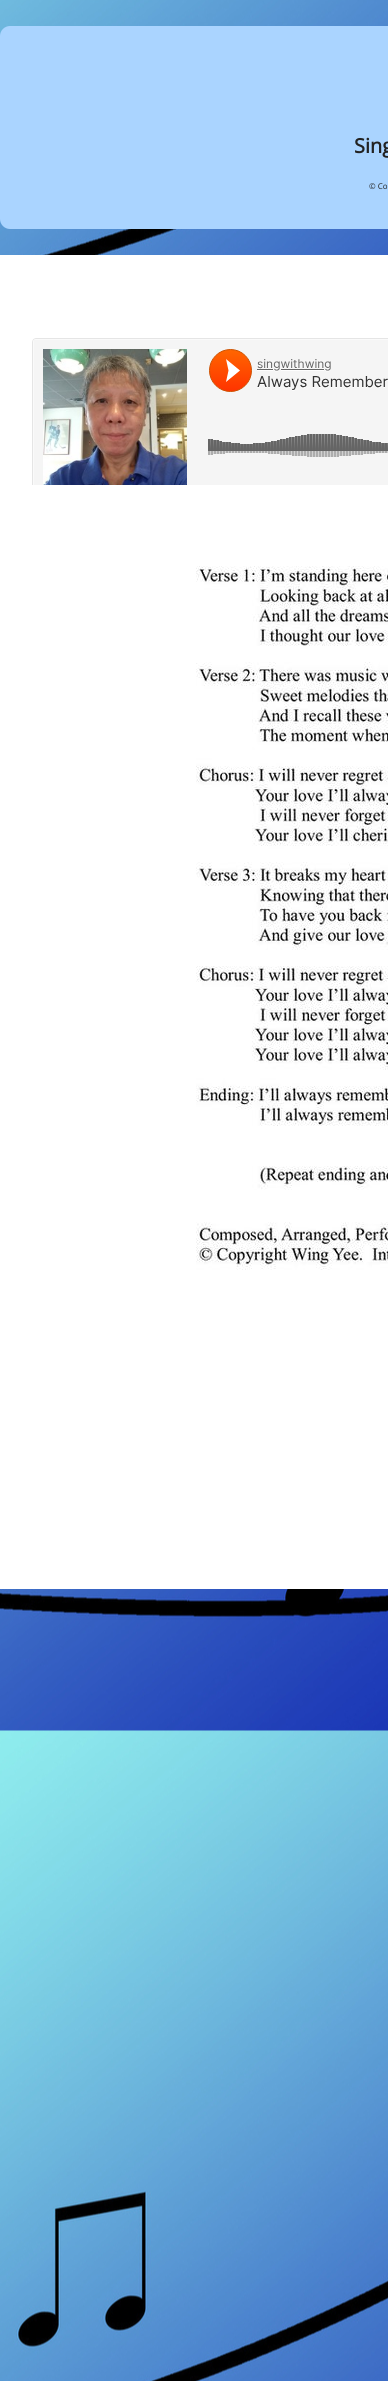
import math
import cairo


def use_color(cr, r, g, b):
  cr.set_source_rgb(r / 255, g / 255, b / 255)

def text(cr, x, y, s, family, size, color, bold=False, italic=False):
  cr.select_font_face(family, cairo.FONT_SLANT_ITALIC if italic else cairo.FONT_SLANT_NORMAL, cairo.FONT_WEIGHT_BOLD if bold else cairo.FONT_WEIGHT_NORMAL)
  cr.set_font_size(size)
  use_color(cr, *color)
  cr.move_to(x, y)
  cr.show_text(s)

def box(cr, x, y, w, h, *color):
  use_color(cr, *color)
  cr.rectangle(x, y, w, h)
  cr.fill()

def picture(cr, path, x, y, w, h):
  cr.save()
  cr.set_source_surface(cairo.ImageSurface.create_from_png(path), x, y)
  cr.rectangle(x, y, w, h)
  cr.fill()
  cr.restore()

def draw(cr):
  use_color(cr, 255, 255, 255)
  cr.paint()
  picture(cr, "img_01.png", 0, 0, 388, 2381)
  box(cr, 0, 255, 388, 1334, 255, 255, 255)
  use_color(cr, 170, 212, 255)
  cr.new_path()
  cr.move_to(10, 26)
  cr.line_to(388, 26)
  cr.line_to(388, 229)
  cr.line_to(10, 229)
  cr.curve_to(4.5, 229, 0, 224.5, 0, 219)
  cr.line_to(0, 36)
  cr.curve_to(0, 30.5, 4.5, 26, 10, 26)
  cr.close_path()
  cr.fill()
  picture(cr, "img_02.png", 32, 338, 356, 147)
  picture(cr, "img_03.png", 196, 566, 192, 704)
  text(cr, 354, 153, "Sing", "Open Sans", 20, (34, 34, 34), bold=True)
  text(cr, 369, 189, "© Co", "Open Sans", 8, (34, 34, 34))


surface = cairo.ImageSurface(cairo.FORMAT_RGB24, 388, 2381)
cr = cairo.Context(surface)
options = cairo.FontOptions()
options.set_hint_metrics(cairo.HINT_METRICS_OFF)
options.set_hint_style(cairo.HINT_STYLE_NONE)
cr.set_font_options(options)
cr.set_miter_limit(4)
draw(cr)
surface.write_to_png("out.png")
